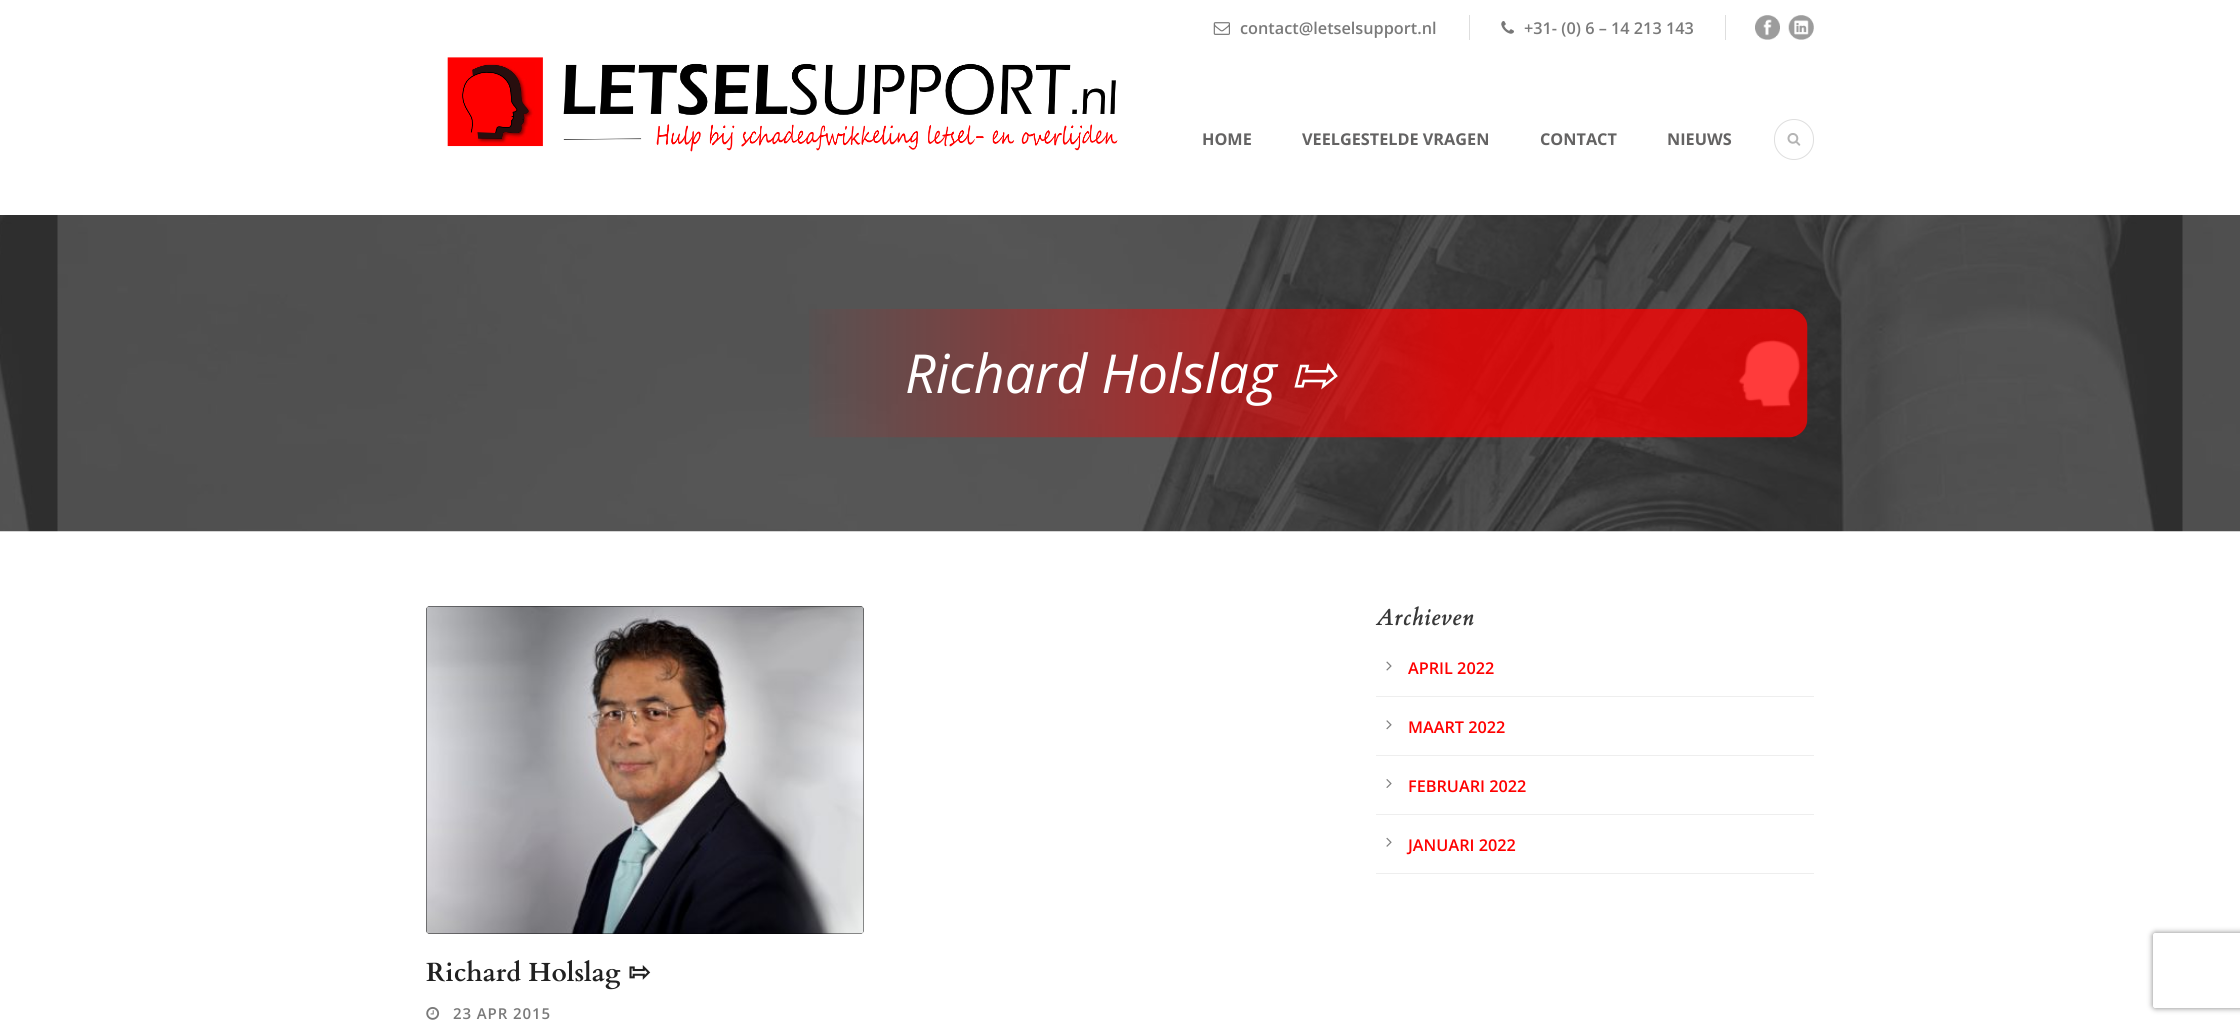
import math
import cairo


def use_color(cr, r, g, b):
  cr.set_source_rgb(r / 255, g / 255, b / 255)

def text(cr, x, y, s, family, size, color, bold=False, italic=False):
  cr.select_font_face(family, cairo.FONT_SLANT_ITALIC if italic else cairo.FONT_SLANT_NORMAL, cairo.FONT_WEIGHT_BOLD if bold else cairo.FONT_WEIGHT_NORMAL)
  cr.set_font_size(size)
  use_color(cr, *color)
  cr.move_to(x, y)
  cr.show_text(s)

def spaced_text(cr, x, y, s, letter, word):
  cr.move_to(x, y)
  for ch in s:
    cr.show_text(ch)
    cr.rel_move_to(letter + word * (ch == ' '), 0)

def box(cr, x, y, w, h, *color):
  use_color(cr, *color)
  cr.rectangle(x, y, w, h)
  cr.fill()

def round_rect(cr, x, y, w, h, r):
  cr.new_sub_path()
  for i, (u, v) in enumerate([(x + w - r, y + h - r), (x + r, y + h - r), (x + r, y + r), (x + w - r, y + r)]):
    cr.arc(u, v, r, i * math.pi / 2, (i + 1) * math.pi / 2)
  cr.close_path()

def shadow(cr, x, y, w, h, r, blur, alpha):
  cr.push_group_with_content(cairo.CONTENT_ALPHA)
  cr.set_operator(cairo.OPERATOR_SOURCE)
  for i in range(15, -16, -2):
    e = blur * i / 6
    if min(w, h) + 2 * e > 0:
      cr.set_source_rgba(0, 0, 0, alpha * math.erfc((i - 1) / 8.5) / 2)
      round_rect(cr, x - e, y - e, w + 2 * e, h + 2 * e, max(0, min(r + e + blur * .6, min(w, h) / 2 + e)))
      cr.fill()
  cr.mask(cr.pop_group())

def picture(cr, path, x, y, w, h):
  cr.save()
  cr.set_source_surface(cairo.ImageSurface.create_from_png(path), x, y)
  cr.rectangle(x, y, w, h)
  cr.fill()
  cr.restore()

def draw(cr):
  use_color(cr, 255, 255, 255)
  cr.paint()
  box(cr, 1469, 15, 1, 25, 222, 222, 222)
  picture(cr, "img_01.png", 1213, 22, 17, 13)
  box(cr, 1725, 15, 1, 25, 222, 222, 222)
  picture(cr, "img_02.png", 1501, 21, 13, 13)
  picture(cr, "img_03.png", 1755, 15, 25, 25)
  picture(cr, "img_04.png", 1788, 15, 26, 25)
  picture(cr, "img_05.png", 447, 57, 671, 95)
  round_rect(cr, 1774.5, 119.5, 39, 40, 19.5)
  cr.set_line_width(1)
  cr.stroke()
  picture(cr, "img_06.png", 1787, 133, 14, 13)
  picture(cr, "img_07.png", 0, 215, 2240, 317)
  picture(cr, "img_08.png", 809, 308, 999, 130)
  box(cr, 1376, 696, 438, 1, 238, 238, 238)
  picture(cr, "img_09.png", 1386, 661, 6, 10)
  box(cr, 1376, 755, 438, 1, 238, 238, 238)
  picture(cr, "img_10.png", 1386, 720, 6, 10)
  box(cr, 1376, 814, 438, 1, 238, 238, 238)
  picture(cr, "img_11.png", 1386, 779, 6, 9)
  box(cr, 1376, 873, 438, 1, 238, 238, 238)
  picture(cr, "img_12.png", 1386, 837, 6, 10)
  use_color(cr, 0, 0, 0)
  round_rect(cr, 426, 606, 438, 328, 4)
  cr.fill()
  picture(cr, "img_13.png", 426, 606, 438, 328)
  picture(cr, "img_14.png", 426, 1007, 14, 13)
  cr.save()
  cr.set_fill_rule(cairo.FILL_RULE_EVEN_ODD)
  cr.new_path()
  cr.move_to(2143, 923)
  cr.line_to(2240, 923)
  cr.line_to(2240, 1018)
  cr.line_to(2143, 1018)
  cr.close_path()
  cr.move_to(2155.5, 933)
  cr.line_to(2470.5, 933)
  cr.curve_to(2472, 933, 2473, 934, 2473, 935.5)
  cr.line_to(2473, 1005.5)
  cr.curve_to(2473, 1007, 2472, 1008, 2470.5, 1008)
  cr.line_to(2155.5, 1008)
  cr.curve_to(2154, 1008, 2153, 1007, 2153, 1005.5)
  cr.line_to(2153, 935.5)
  cr.curve_to(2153, 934, 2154, 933, 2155.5, 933)
  cr.close_path()
  cr.clip()
  use_color(cr, 128, 128, 128)
  shadow(cr, 2153, 933, 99, 75, 2.5, 3, 1)
  cr.restore()
  text(cr, 1240, 34, "contact@letselsupport.nl", "Open Sans SemiBold", 16.25, (122, 122, 122))
  text(cr, 1524, 34, "+31- (0) 6 – 14 213 143", "Open Sans SemiBold", 16.25, (122, 122, 122))
  text(cr, 1202, 145, "HOME", "Open Sans", 16.25, (100, 99, 99), bold=True)
  text(cr, 1302, 145, "VEELGESTELDE VRAGEN", "Open Sans", 16.25, (100, 99, 99), bold=True)
  text(cr, 1540, 145, "CONTACT", "Open Sans", 16.25, (100, 99, 99), bold=True)
  text(cr, 1667, 145, "NIEUWS", "Open Sans", 16.25, (100, 99, 99), bold=True)
  text(cr, 905, 393, "Richard Holslag", "Open Sans", 53.75, (255, 255, 255), italic=True)
  text(cr, 1290, 393, "⇰", "DejaVu Sans", 53.75, (255, 255, 255), italic=True)
  cr.select_font_face("Cardo", cairo.FONT_SLANT_ITALIC, cairo.FONT_WEIGHT_BOLD)
  cr.set_font_size(22.5)
  use_color(cr, 56, 56, 56)
  spaced_text(cr, 1376, 625, "Archieven", 1.25, 0)
  text(cr, 1408, 674, "APRIL 2022", "Open Sans SemiBold", 16.25, (255, 0, 0))
  text(cr, 1408, 733, "MAART 2022", "Open Sans SemiBold", 16.25, (255, 0, 0))
  text(cr, 1408, 792, "FEBRUARI 2022", "Open Sans SemiBold", 16.25, (255, 0, 0))
  text(cr, 1408, 851, "JANUARI 2022", "Open Sans SemiBold", 16.25, (255, 0, 0))
  text(cr, 426, 981, "Richard Holslag", "Cardo", 26.25, (33, 33, 33), bold=True)
  text(cr, 628, 981, "⇰", "DejaVu Sans", 26.25, (33, 33, 33), bold=True)
  cr.select_font_face("Open Sans SemiBold")
  cr.set_font_size(15)
  use_color(cr, 122, 122, 122)
  spaced_text(cr, 453, 1019, "23 APR 2015", 0.9, 0)


surface = cairo.ImageSurface(cairo.FORMAT_RGB24, 2240, 1025)
cr = cairo.Context(surface)
options = cairo.FontOptions()
options.set_hint_metrics(cairo.HINT_METRICS_OFF)
options.set_hint_style(cairo.HINT_STYLE_NONE)
cr.set_font_options(options)
cr.set_miter_limit(4)
draw(cr)
surface.write_to_png("out.png")
